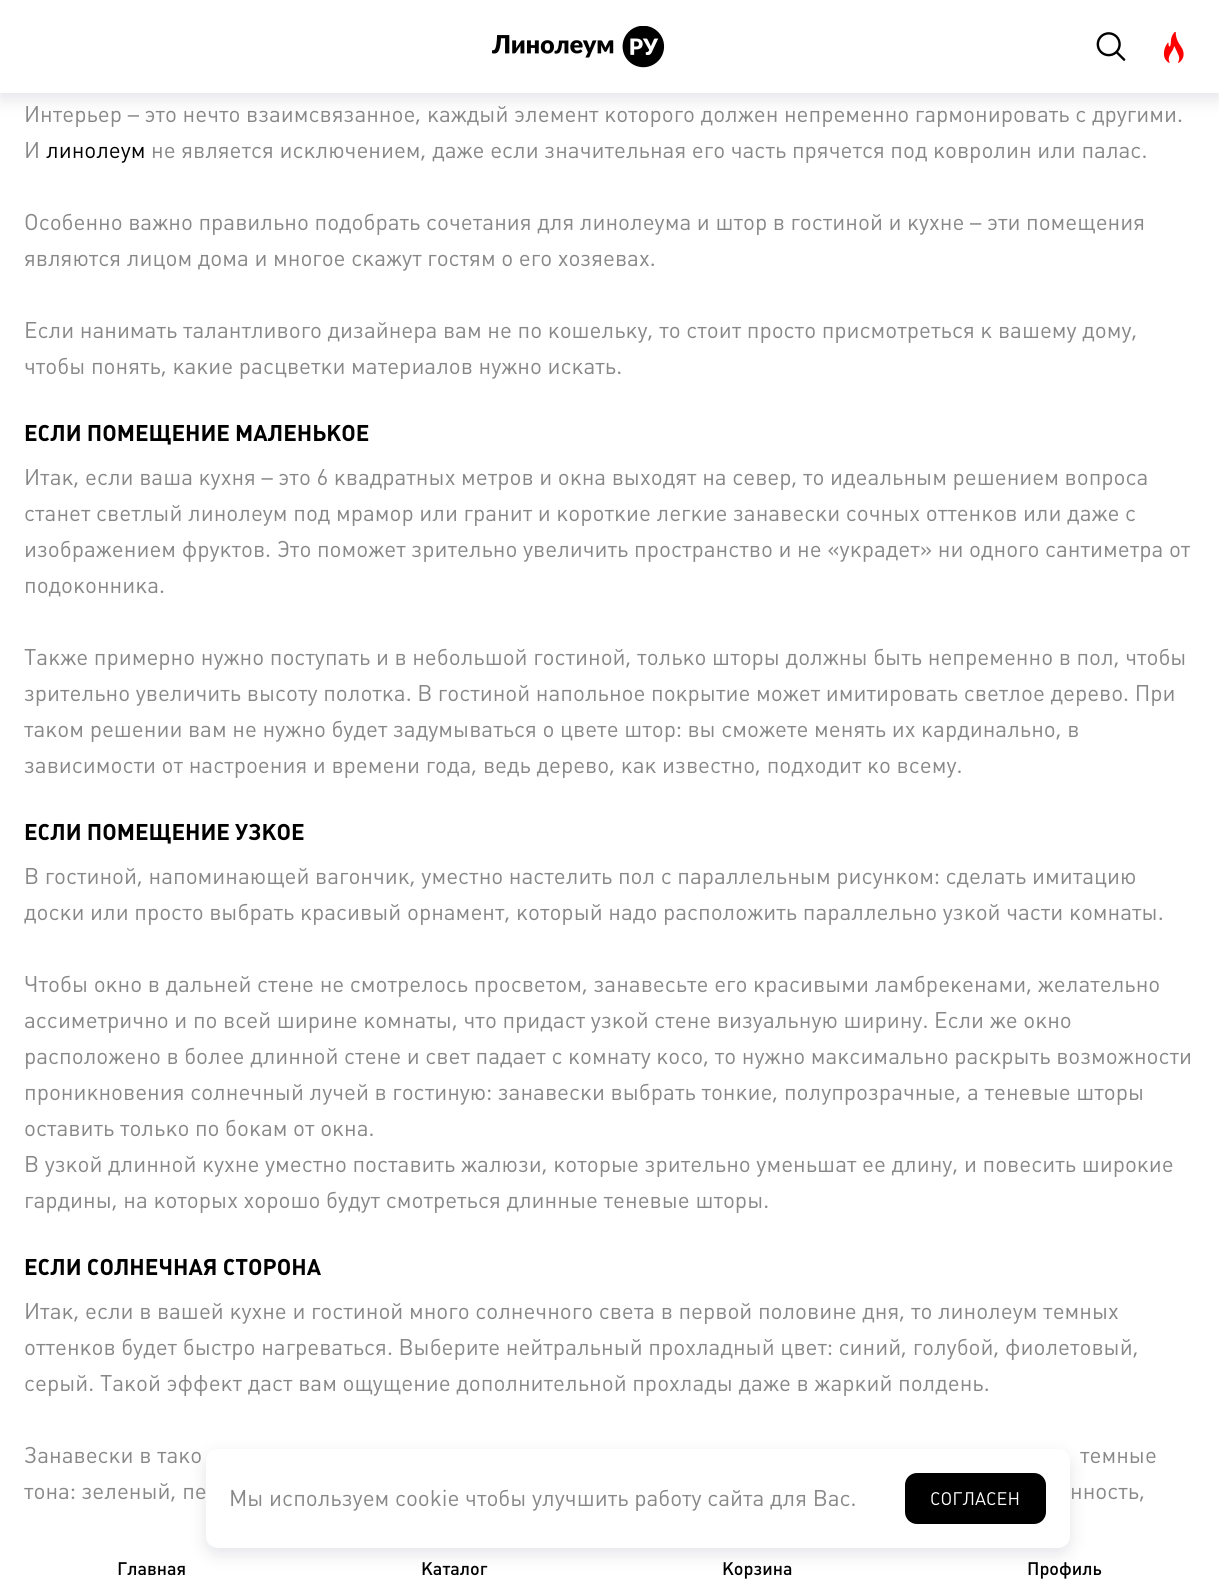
import math
import cairo


def use_color(cr, r, g, b):
  cr.set_source_rgb(r / 255, g / 255, b / 255)

def text(cr, x, y, s, family, size, color, bold=False, italic=False):
  cr.select_font_face(family, cairo.FONT_SLANT_ITALIC if italic else cairo.FONT_SLANT_NORMAL, cairo.FONT_WEIGHT_BOLD if bold else cairo.FONT_WEIGHT_NORMAL)
  cr.set_font_size(size)
  use_color(cr, *color)
  cr.move_to(x, y)
  cr.show_text(s)

def box(cr, x, y, w, h, *color):
  use_color(cr, *color)
  cr.rectangle(x, y, w, h)
  cr.fill()

def round_rect(cr, x, y, w, h, r):
  cr.new_sub_path()
  for i, (u, v) in enumerate([(x + w - r, y + h - r), (x + r, y + h - r), (x + r, y + r), (x + w - r, y + r)]):
    cr.arc(u, v, r, i * math.pi / 2, (i + 1) * math.pi / 2)
  cr.close_path()

def shadow(cr, x, y, w, h, r, blur, alpha):
  cr.push_group_with_content(cairo.CONTENT_ALPHA)
  cr.set_operator(cairo.OPERATOR_SOURCE)
  for i in range(15, -16, -2):
    e = blur * i / 6
    if min(w, h) + 2 * e > 0:
      cr.set_source_rgba(0, 0, 0, alpha * math.erfc((i - 1) / 8.5) / 2)
      round_rect(cr, x - e, y - e, w + 2 * e, h + 2 * e, max(0, min(r + e + blur * .6, min(w, h) / 2 + e)))
      cr.fill()
  cr.mask(cr.pop_group())

def picture(cr, path, x, y, w, h):
  cr.save()
  cr.set_source_surface(cairo.ImageSurface.create_from_png(path), x, y)
  cr.rectangle(x, y, w, h)
  cr.fill()
  cr.restore()

def draw(cr):
  use_color(cr, 255, 255, 255)
  cr.paint()
  use_color(cr, 25, 26, 55)
  shadow(cr, 0, 6, 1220, 93, 0, 9, 0.12)
  box(cr, 0, 0, 1219, 93, 255, 255, 255)
  picture(cr, "img_01.png", 492, 26, 173, 42)
  picture(cr, "img_02.png", 1096, 32, 30, 29)
  picture(cr, "img_03.png", 1163, 32, 21, 31)
  use_color(cr, 25, 26, 55)
  shadow(cr, 206, 1455, 864, 99, 12, 9, 0.12)
  use_color(cr, 255, 255, 255)
  round_rect(cr, 206, 1449, 864, 99, 12)
  cr.fill()
  use_color(cr, 0, 0, 0)
  round_rect(cr, 906, 1474, 139, 49, 11)
  cr.fill_preserve()
  cr.stroke()
  text(cr, 24, 122, "Интерьер – это нечто взаимсвязанное, каждый элемент которого должен непременно гармонировать с другими.", "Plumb", 22.5, (136, 136, 136))
  text(cr, 24, 158, "И", "Plumb", 22.5, (136, 136, 136))
  text(cr, 46, 158, "линолеум", "Plumb", 22.5, (0, 0, 0))
  text(cr, 151, 158, "не является исключением, даже если значительная его часть прячется под ковролин или палас.", "Plumb", 22.5, (136, 136, 136))
  text(cr, 24, 230, "Особенно важно правильно подобрать сочетания для линолеума и штор в гостиной и кухне – эти помещения", "Plumb", 22.5, (136, 136, 136))
  text(cr, 24, 266, "являются лицом дома и многое скажут гостям о его хозяевах.", "Plumb", 22.5, (136, 136, 136))
  text(cr, 24, 338, "Если нанимать талантливого дизайнера вам не по кошельку, то стоит просто присмотреться к вашему дому,", "Plumb", 22.5, (136, 136, 136))
  text(cr, 24, 374, "чтобы понять, какие расцветки материалов нужно искать.", "Plumb", 22.5, (136, 136, 136))
  text(cr, 24, 441, "ЕСЛИ ПОМЕЩЕНИЕ МАЛЕНЬКОЕ", "Plumb", 22.5, (0, 0, 0), bold=True)
  text(cr, 24, 485, "Итак, если ваша кухня – это 6 квадратных метров и окна выходят на север, то идеальным решением вопроса", "Plumb", 22.5, (136, 136, 136))
  text(cr, 24, 521, "станет светлый линолеум под мрамор или гранит и короткие легкие занавески сочных оттенков или даже с", "Plumb", 22.5, (136, 136, 136))
  text(cr, 24, 557, "изображением фруктов. Это поможет зрительно увеличить пространство и не «украдет» ни одного сантиметра от", "Plumb", 22.5, (136, 136, 136))
  text(cr, 24, 593, "подоконника.", "Plumb", 22.5, (136, 136, 136))
  text(cr, 24, 665, "Также примерно нужно поступать и в небольшой гостиной, только шторы должны быть непременно в пол, чтобы", "Plumb", 22.5, (136, 136, 136))
  text(cr, 24, 701, "зрительно увеличить высоту полотка. В гостиной напольное покрытие может имитировать светлое дерево. При", "Plumb", 22.5, (136, 136, 136))
  text(cr, 24, 737, "таком решении вам не нужно будет задумываться о цвете штор: вы сможете менять их кардинально, в", "Plumb", 22.5, (136, 136, 136))
  text(cr, 24, 773, "зависимости от настроения и времени года, ведь дерево, как известно, подходит ко всему.", "Plumb", 22.5, (136, 136, 136))
  text(cr, 24, 840, "ЕСЛИ ПОМЕЩЕНИЕ УЗКОЕ", "Plumb", 22.5, (0, 0, 0), bold=True)
  text(cr, 24, 884, "В гостиной, напоминающей вагончик, уместно настелить пол с параллельным рисунком: сделать имитацию", "Plumb", 22.5, (136, 136, 136))
  text(cr, 24, 920, "доски или просто выбрать красивый орнамент, который надо расположить параллельно узкой части комнаты.", "Plumb", 22.5, (136, 136, 136))
  text(cr, 24, 992, "Чтобы окно в дальней стене не смотрелось просветом, занавесьте его красивыми ламбрекенами, желательно", "Plumb", 22.5, (136, 136, 136))
  text(cr, 24, 1028, "ассиметрично и по всей ширине комнаты, что придаст узкой стене визуальную ширину. Если же окно", "Plumb", 22.5, (136, 136, 136))
  text(cr, 24, 1064, "расположено в более длинной стене и свет падает с комнату косо, то нужно максимально раскрыть возможности", "Plumb", 22.5, (136, 136, 136))
  text(cr, 24, 1100, "проникновения солнечный лучей в гостиную: занавески выбрать тонкие, полупрозрачные, а теневые шторы", "Plumb", 22.5, (136, 136, 136))
  text(cr, 24, 1136, "оставить только по бокам от окна.", "Plumb", 22.5, (136, 136, 136))
  text(cr, 24, 1172, "В узкой длинной кухне уместно поставить жалюзи, которые зрительно уменьшат ее длину, и повесить широкие", "Plumb", 22.5, (136, 136, 136))
  text(cr, 24, 1208, "гардины, на которых хорошо будут смотреться длинные теневые шторы.", "Plumb", 22.5, (136, 136, 136))
  text(cr, 24, 1275, "ЕСЛИ СОЛНЕЧНАЯ СТОРОНА", "Plumb", 22.5, (0, 0, 0), bold=True)
  text(cr, 24, 1319, "Итак, если в вашей кухне и гостиной много солнечного света в первой половине дня, то линолеум темных", "Plumb", 22.5, (136, 136, 136))
  text(cr, 24, 1355, "оттенков будет быстро нагреваться. Выберите нейтральный прохладный цвет: синий, голубой, фиолетовый,", "Plumb", 22.5, (136, 136, 136))
  text(cr, 24, 1391, "серый. Такой эффект даст вам ощущение дополнительной прохлады даже в жаркий полдень.", "Plumb", 22.5, (136, 136, 136))
  text(cr, 24, 1463, "Занавески в тако", "Plumb", 22.5, (136, 136, 136))
  text(cr, 1080, 1463, "темные", "Plumb", 22.5, (136, 136, 136))
  text(cr, 24, 1499, "тона: зеленый, пе", "Plumb", 22.5, (136, 136, 136))
  text(cr, 1070, 1499, "нность,", "Plumb", 22.5, (136, 136, 136))
  text(cr, 229, 1506, "Мы используем cookie чтобы улучшить работу сайта для Вас.", "Plumb", 22.5, (136, 136, 136))
  text(cr, 930, 1505, "СОГЛАСЕН", "Plumb", 18, (255, 255, 255))
  text(cr, 117, 1575, "Главная", "Plumb Medium", 18, (0, 0, 0))
  text(cr, 421, 1575, "Каталог", "Plumb Medium", 18, (0, 0, 0))
  text(cr, 722, 1575, "Корзина", "Plumb Medium", 18, (0, 0, 0))
  text(cr, 1027, 1575, "Профиль", "Plumb Medium", 18, (0, 0, 0))


surface = cairo.ImageSurface(cairo.FORMAT_RGB24, 1219, 1592)
cr = cairo.Context(surface)
options = cairo.FontOptions()
options.set_hint_metrics(cairo.HINT_METRICS_OFF)
options.set_hint_style(cairo.HINT_STYLE_NONE)
cr.set_font_options(options)
cr.set_miter_limit(4)
draw(cr)
surface.write_to_png("out.png")
